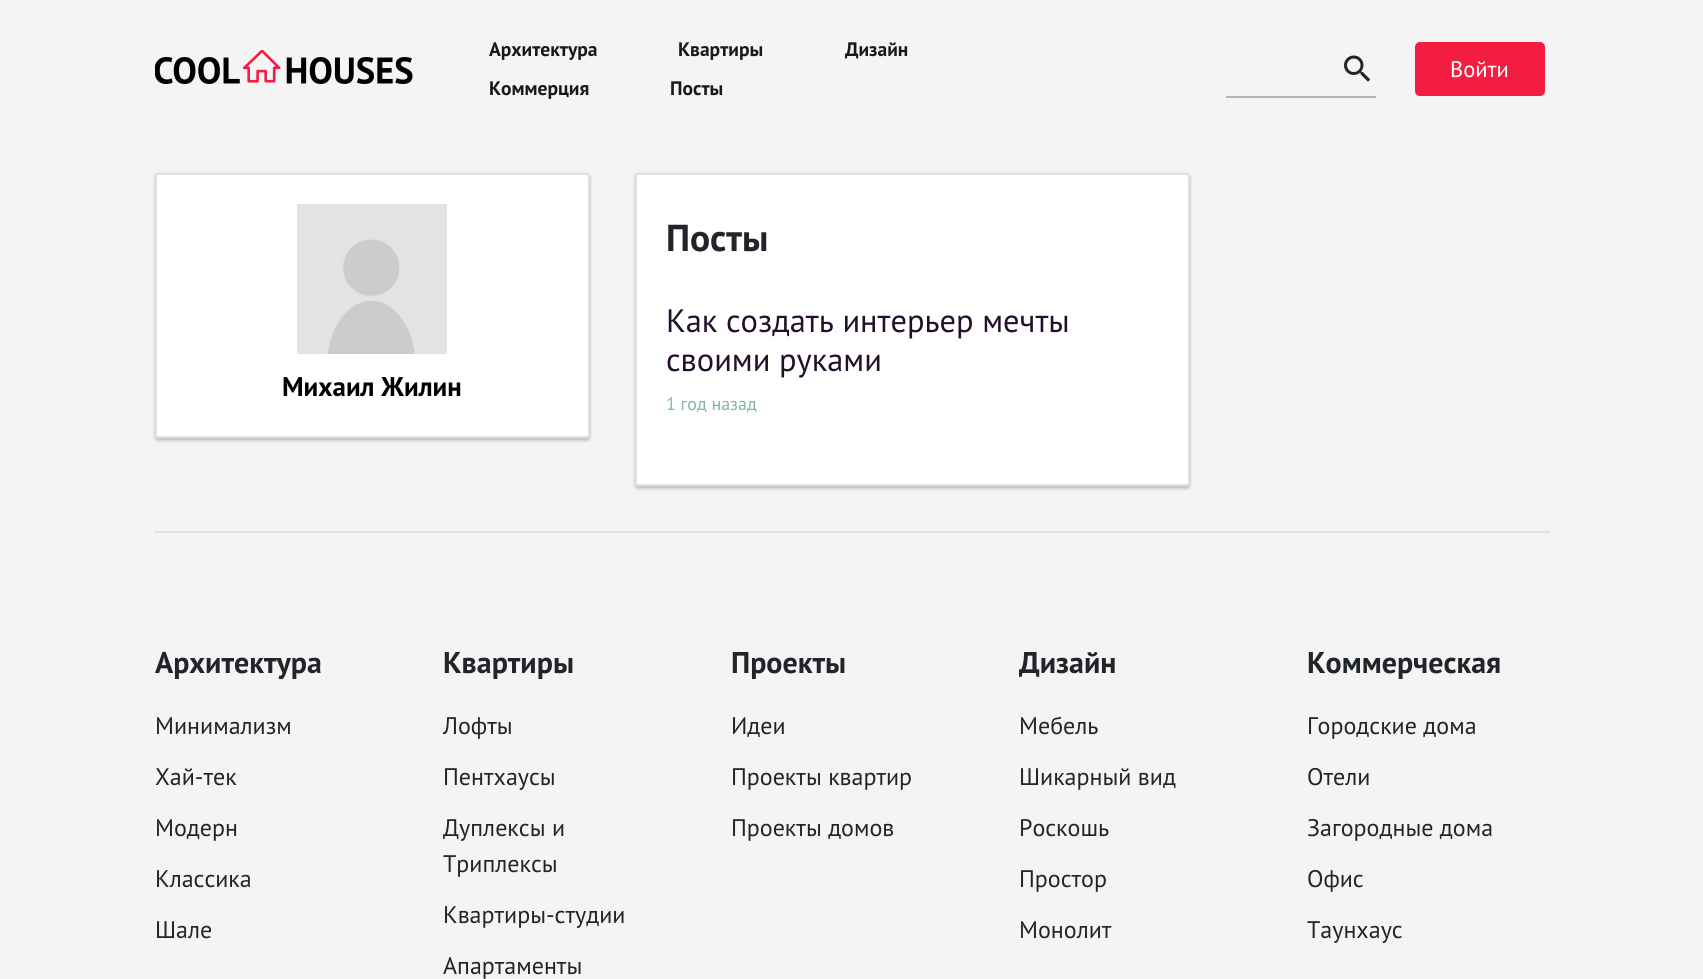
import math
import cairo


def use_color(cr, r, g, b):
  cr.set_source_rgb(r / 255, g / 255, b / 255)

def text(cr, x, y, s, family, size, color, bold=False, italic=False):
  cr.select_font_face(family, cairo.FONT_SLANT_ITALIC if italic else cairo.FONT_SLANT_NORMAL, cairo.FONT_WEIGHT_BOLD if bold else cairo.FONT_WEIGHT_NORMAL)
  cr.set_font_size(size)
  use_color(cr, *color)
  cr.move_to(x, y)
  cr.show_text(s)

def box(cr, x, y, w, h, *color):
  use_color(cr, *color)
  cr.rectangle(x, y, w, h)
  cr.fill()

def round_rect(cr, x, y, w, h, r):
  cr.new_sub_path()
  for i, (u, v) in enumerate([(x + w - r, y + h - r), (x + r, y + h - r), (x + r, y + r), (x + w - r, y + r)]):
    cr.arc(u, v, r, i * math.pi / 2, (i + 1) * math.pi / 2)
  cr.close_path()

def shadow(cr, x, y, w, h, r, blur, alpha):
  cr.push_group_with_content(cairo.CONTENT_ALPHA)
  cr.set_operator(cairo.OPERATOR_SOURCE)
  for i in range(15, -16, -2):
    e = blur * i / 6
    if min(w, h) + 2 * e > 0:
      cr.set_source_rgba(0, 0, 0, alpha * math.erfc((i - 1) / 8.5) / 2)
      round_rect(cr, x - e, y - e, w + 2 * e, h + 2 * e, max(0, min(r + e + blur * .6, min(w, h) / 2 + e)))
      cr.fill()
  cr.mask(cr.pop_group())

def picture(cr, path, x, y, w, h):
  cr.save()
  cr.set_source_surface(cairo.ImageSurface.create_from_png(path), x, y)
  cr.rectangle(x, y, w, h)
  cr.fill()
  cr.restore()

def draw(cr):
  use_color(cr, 244, 244, 244)
  cr.paint()
  picture(cr, "img_01.png", 155, 50, 258, 34)
  box(cr, 1226, 96, 150, 2, 181, 175, 184)
  picture(cr, "img_02.png", 1344, 55, 27, 27)
  use_color(cr, 242, 29, 65)
  round_rect(cr, 1415, 42, 130, 54, 5)
  cr.fill()
  use_color(cr, 0, 0, 0)
  shadow(cr, 155, 176, 435, 265, 3, 1.5, 0.18)
  shadow(cr, 155, 173, 435, 265, 3, 1.5, 0.1)
  use_color(cr, 255, 255, 255)
  round_rect(cr, 155, 173, 435, 265, 3)
  cr.fill()
  round_rect(cr, 156, 174, 433, 263, 2)
  cr.set_source_rgba(0, 0, 0, 0.12)
  cr.stroke()
  picture(cr, "img_03.png", 297, 204, 150, 150)
  use_color(cr, 0, 0, 0)
  shadow(cr, 635, 176, 555, 313, 3, 1.5, 0.18)
  shadow(cr, 635, 173, 555, 313, 3, 1.5, 0.1)
  use_color(cr, 255, 255, 255)
  round_rect(cr, 635, 173, 555, 313, 3)
  cr.fill()
  round_rect(cr, 636, 174, 553, 311, 2)
  cr.set_source_rgba(0, 0, 0, 0.12)
  cr.stroke()
  box(cr, 155, 531, 1395, 2, 225, 225, 225)
  text(cr, 489, 56, "Архитектура", "PT Sans", 19.5, (25, 25, 25), bold=True)
  text(cr, 678, 56, "Квартиры", "PT Sans", 19.5, (25, 25, 25), bold=True)
  text(cr, 845, 56, "Дизайн", "PT Sans", 19.5, (25, 25, 25), bold=True)
  text(cr, 489, 95, "Коммерция", "PT Sans", 19.5, (25, 25, 25), bold=True)
  text(cr, 670, 95, "Посты", "PT Sans", 19.5, (25, 25, 25), bold=True)
  text(cr, 1450, 77, "Войти", "PT Sans", 22.5, (255, 255, 255))
  text(cr, 282, 396, "Михаил Жилин", "PT Sans", 27, (0, 0, 0), bold=True)
  text(cr, 666, 251, "Посты", "PT Sans", 37.5, (33, 37, 41), bold=True)
  text(cr, 666, 332, "Как создать интерьер мечты", "PT Sans", 32.4, (35, 15, 43))
  text(cr, 666, 371, "своими руками", "PT Sans", 32.4, (35, 15, 43))
  text(cr, 666, 410, "1 год назад", "PT Sans", 18, (130, 179, 174))
  text(cr, 155, 673, "Архитектура", "PT Sans", 30, (33, 37, 41), bold=True)
  text(cr, 155, 734, "Минимализм", "PT Sans", 24, (33, 37, 41))
  text(cr, 155, 785, "Хай-тек", "PT Sans", 24, (33, 37, 41))
  text(cr, 155, 836, "Модерн", "PT Sans", 24, (33, 37, 41))
  text(cr, 155, 887, "Классика", "PT Sans", 24, (33, 37, 41))
  text(cr, 155, 938, "Шале", "PT Sans", 24, (33, 37, 41))
  text(cr, 443, 673, "Квартиры", "PT Sans", 30, (33, 37, 41), bold=True)
  text(cr, 443, 734, "Лофты", "PT Sans", 24, (33, 37, 41))
  text(cr, 443, 785, "Пентхаусы", "PT Sans", 24, (33, 37, 41))
  text(cr, 443, 836, "Дуплексы и", "PT Sans", 24, (33, 37, 41))
  text(cr, 443, 872, "Триплексы", "PT Sans", 24, (33, 37, 41))
  text(cr, 443, 923, "Квартиры-студии", "PT Sans", 24, (33, 37, 41))
  text(cr, 443, 974, "Апартаменты", "PT Sans", 24, (33, 37, 41))
  text(cr, 731, 673, "Проекты", "PT Sans", 30, (33, 37, 41), bold=True)
  text(cr, 731, 734, "Идеи", "PT Sans", 24, (33, 37, 41))
  text(cr, 731, 785, "Проекты квартир", "PT Sans", 24, (33, 37, 41))
  text(cr, 731, 836, "Проекты домов", "PT Sans", 24, (33, 37, 41))
  text(cr, 1019, 673, "Дизайн", "PT Sans", 30, (33, 37, 41), bold=True)
  text(cr, 1019, 734, "Мебель", "PT Sans", 24, (33, 37, 41))
  text(cr, 1019, 785, "Шикарный вид", "PT Sans", 24, (33, 37, 41))
  text(cr, 1019, 836, "Роскошь", "PT Sans", 24, (33, 37, 41))
  text(cr, 1019, 887, "Простор", "PT Sans", 24, (33, 37, 41))
  text(cr, 1019, 938, "Монолит", "PT Sans", 24, (33, 37, 41))
  text(cr, 1307, 673, "Коммерческая", "PT Sans", 30, (33, 37, 41), bold=True)
  text(cr, 1307, 734, "Городские дома", "PT Sans", 24, (33, 37, 41))
  text(cr, 1307, 785, "Отели", "PT Sans", 24, (33, 37, 41))
  text(cr, 1307, 836, "Загородные дома", "PT Sans", 24, (33, 37, 41))
  text(cr, 1307, 887, "Офис", "PT Sans", 24, (33, 37, 41))
  text(cr, 1307, 938, "Таунхаус", "PT Sans", 24, (33, 37, 41))


surface = cairo.ImageSurface(cairo.FORMAT_RGB24, 1703, 979)
cr = cairo.Context(surface)
options = cairo.FontOptions()
options.set_hint_metrics(cairo.HINT_METRICS_OFF)
options.set_hint_style(cairo.HINT_STYLE_NONE)
cr.set_font_options(options)
cr.set_miter_limit(4)
draw(cr)
surface.write_to_png("out.png")
